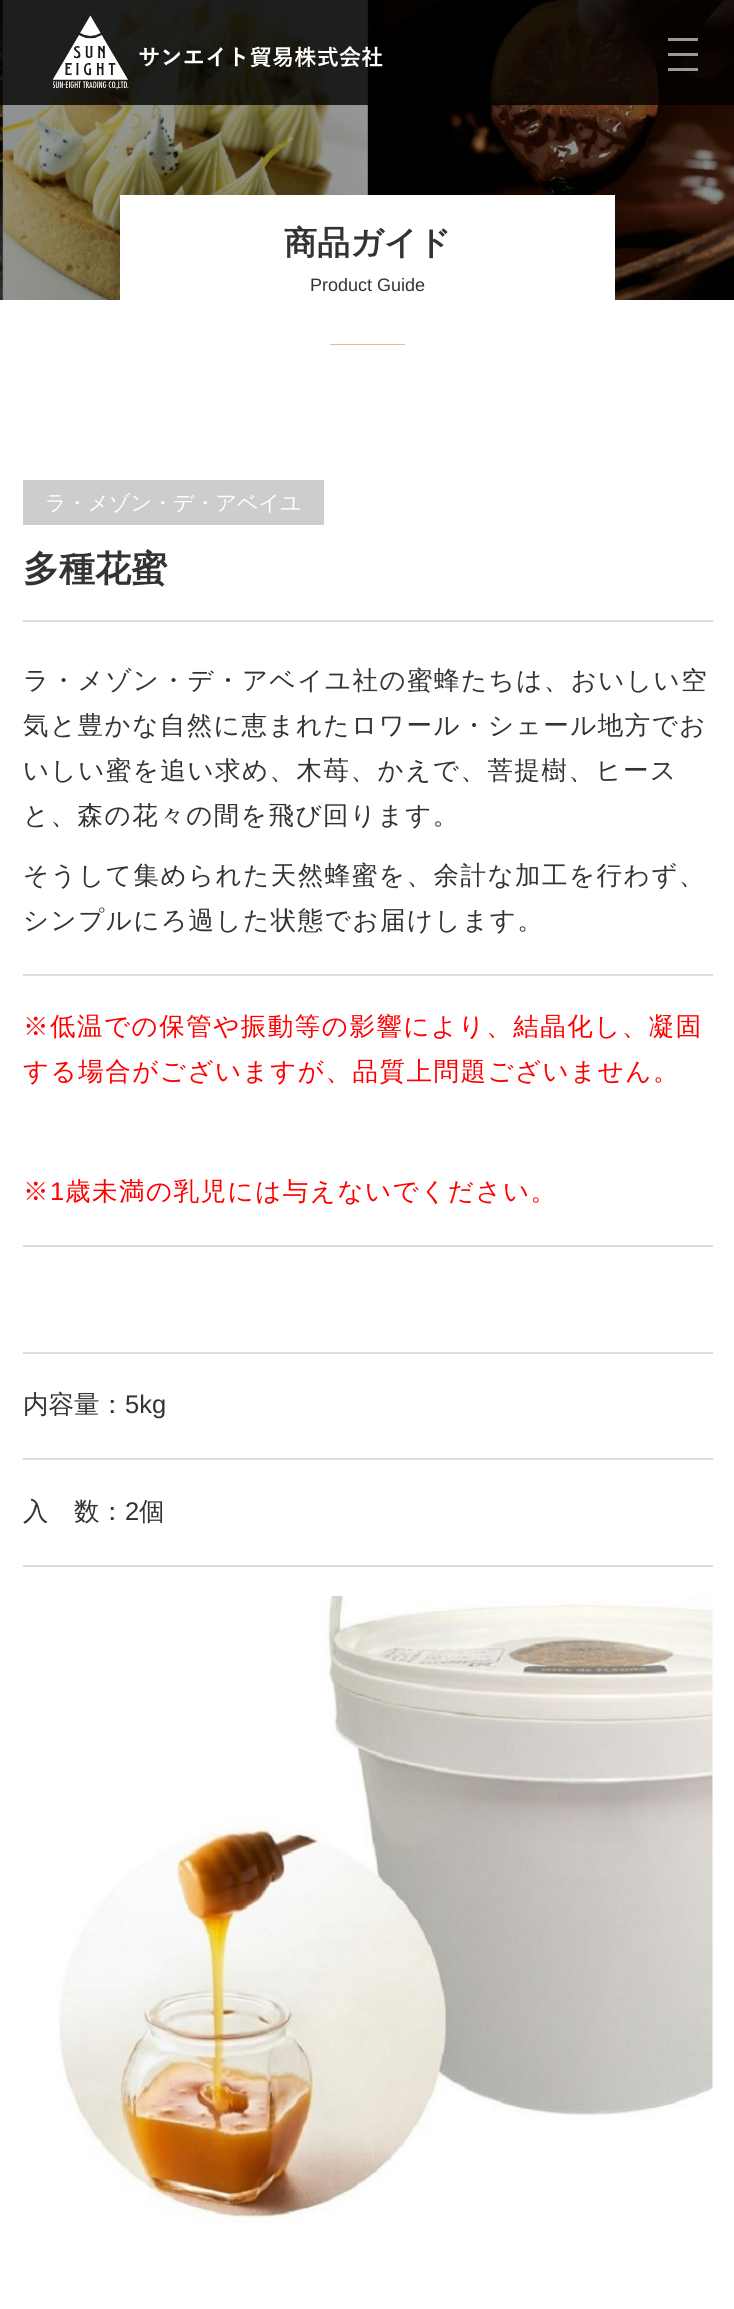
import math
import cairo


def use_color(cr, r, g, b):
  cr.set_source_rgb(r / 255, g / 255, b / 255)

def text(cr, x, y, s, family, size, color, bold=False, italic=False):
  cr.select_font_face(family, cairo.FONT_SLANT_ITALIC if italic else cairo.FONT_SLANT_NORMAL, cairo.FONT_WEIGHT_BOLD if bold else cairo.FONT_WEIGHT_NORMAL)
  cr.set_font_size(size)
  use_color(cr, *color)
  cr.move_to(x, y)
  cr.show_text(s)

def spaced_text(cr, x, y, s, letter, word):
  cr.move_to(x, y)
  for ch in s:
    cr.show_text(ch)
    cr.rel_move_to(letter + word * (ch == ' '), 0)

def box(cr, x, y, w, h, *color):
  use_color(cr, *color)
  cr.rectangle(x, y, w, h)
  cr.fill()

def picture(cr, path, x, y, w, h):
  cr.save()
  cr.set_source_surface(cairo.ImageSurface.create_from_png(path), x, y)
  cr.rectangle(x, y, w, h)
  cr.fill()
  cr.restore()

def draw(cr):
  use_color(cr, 255, 255, 255)
  cr.paint()
  picture(cr, "img_02.png", 0, 0, 734, 300)
  cr.set_source_rgba(0, 0, 0, 0.8)
  cr.rectangle(0, 0, 734, 105)
  cr.fill()
  picture(cr, "img_01.png", 53, 15, 330, 75)
  box(cr, 668, 53, 30, 3, 153, 153, 153)
  box(cr, 668, 38, 30, 3, 153, 153, 153)
  box(cr, 668, 68, 30, 3, 153, 153, 153)
  box(cr, 120, 195, 495, 105, 255, 255, 255)
  cr.save()
  cr.rectangle(330, 344, 75, 1)
  cr.clip()
  cr.new_path()
  cr.move_to(330, 344)
  cr.line_to(405, 344)
  use_color(cr, 237, 108, 0)
  cr.set_line_width(1)
  cr.stroke()
  cr.restore()
  box(cr, 23, 480, 301, 45, 205, 205, 205)
  box(cr, 23, 620, 690, 2, 221, 221, 221)
  box(cr, 23, 974, 690, 2, 221, 221, 221)
  box(cr, 23, 1245, 690, 2, 221, 221, 221)
  box(cr, 23, 1352, 690, 2, 221, 221, 221)
  box(cr, 23, 1458, 690, 2, 221, 221, 221)
  box(cr, 23, 1565, 690, 2, 221, 221, 221)
  picture(cr, "img_03.png", 57, 1596, 656, 627)
  text(cr, 284, 254, "商品ガイド", "WenQuanYi Zen Hei", 33, (51, 51, 51), bold=True)
  text(cr, 310, 291, "Product Guide", "Liberation Sans", 18, (51, 51, 51))
  text(cr, 45, 510, "ラ・メゾン・デ・アベイユ", "WenQuanYi Zen Hei Medium", 21, (255, 255, 255))
  text(cr, 23, 581, "多種花蜜", "WenQuanYi Zen Hei", 36, (51, 51, 51), bold=True)
  cr.select_font_face("WenQuanYi Zen Hei Medium")
  cr.set_font_size(25.5)
  spaced_text(cr, 23, 689, "ラ・メゾン・デ・アベイユ社の蜜蜂たちは、おいしい空", 1.5, 0)
  spaced_text(cr, 23, 734, "気と豊かな自然に恵まれたロワール・シェール地方でお", 1.5, 0)
  spaced_text(cr, 23, 779, "いしい蜜を追い求め、木苺、かえで、菩提樹、ヒース", 1.5, 0)
  spaced_text(cr, 23, 824, "と、森の花々の間を飛び回ります。", 1.5, 0)
  spaced_text(cr, 23, 884, "そうして集められた天然蜂蜜を、余計な加工を⾏わず、", 1.5, 0)
  spaced_text(cr, 23, 929, "シンプルにろ過した状態でお届けします。", 1.5, 0)
  use_color(cr, 255, 0, 0)
  spaced_text(cr, 23, 1035, "※低温での保管や振動等の影響により、結晶化し、凝固", 1.5, 0)
  spaced_text(cr, 23, 1080, "する場合がございますが、品質上問題ございません。", 1.5, 0)
  spaced_text(cr, 23, 1200, "※", 1.5, 0)
  cr.select_font_face("Liberation Sans")
  spaced_text(cr, 50, 1200, "1", 1.5, 0)
  cr.select_font_face("WenQuanYi Zen Hei Medium")
  spaced_text(cr, 65, 1200, "歳未満の乳児には与えないでください。", 1.5, 0)
  text(cr, 23, 1413, "内容量：", "WenQuanYi Zen Hei Medium", 25.5, (51, 51, 51))
  text(cr, 125, 1413, "5kg", "Liberation Sans", 25.5, (51, 51, 51))
  text(cr, 23, 1520, "入　数：", "WenQuanYi Zen Hei Medium", 25.5, (51, 51, 51))
  text(cr, 125, 1520, "2", "Liberation Sans", 25.5, (51, 51, 51))
  text(cr, 139, 1520, "個", "WenQuanYi Zen Hei Medium", 25.5, (51, 51, 51))


surface = cairo.ImageSurface(cairo.FORMAT_RGB24, 734, 2309)
cr = cairo.Context(surface)
options = cairo.FontOptions()
options.set_hint_metrics(cairo.HINT_METRICS_OFF)
options.set_hint_style(cairo.HINT_STYLE_NONE)
cr.set_font_options(options)
cr.set_miter_limit(4)
draw(cr)
surface.write_to_png("out.png")
